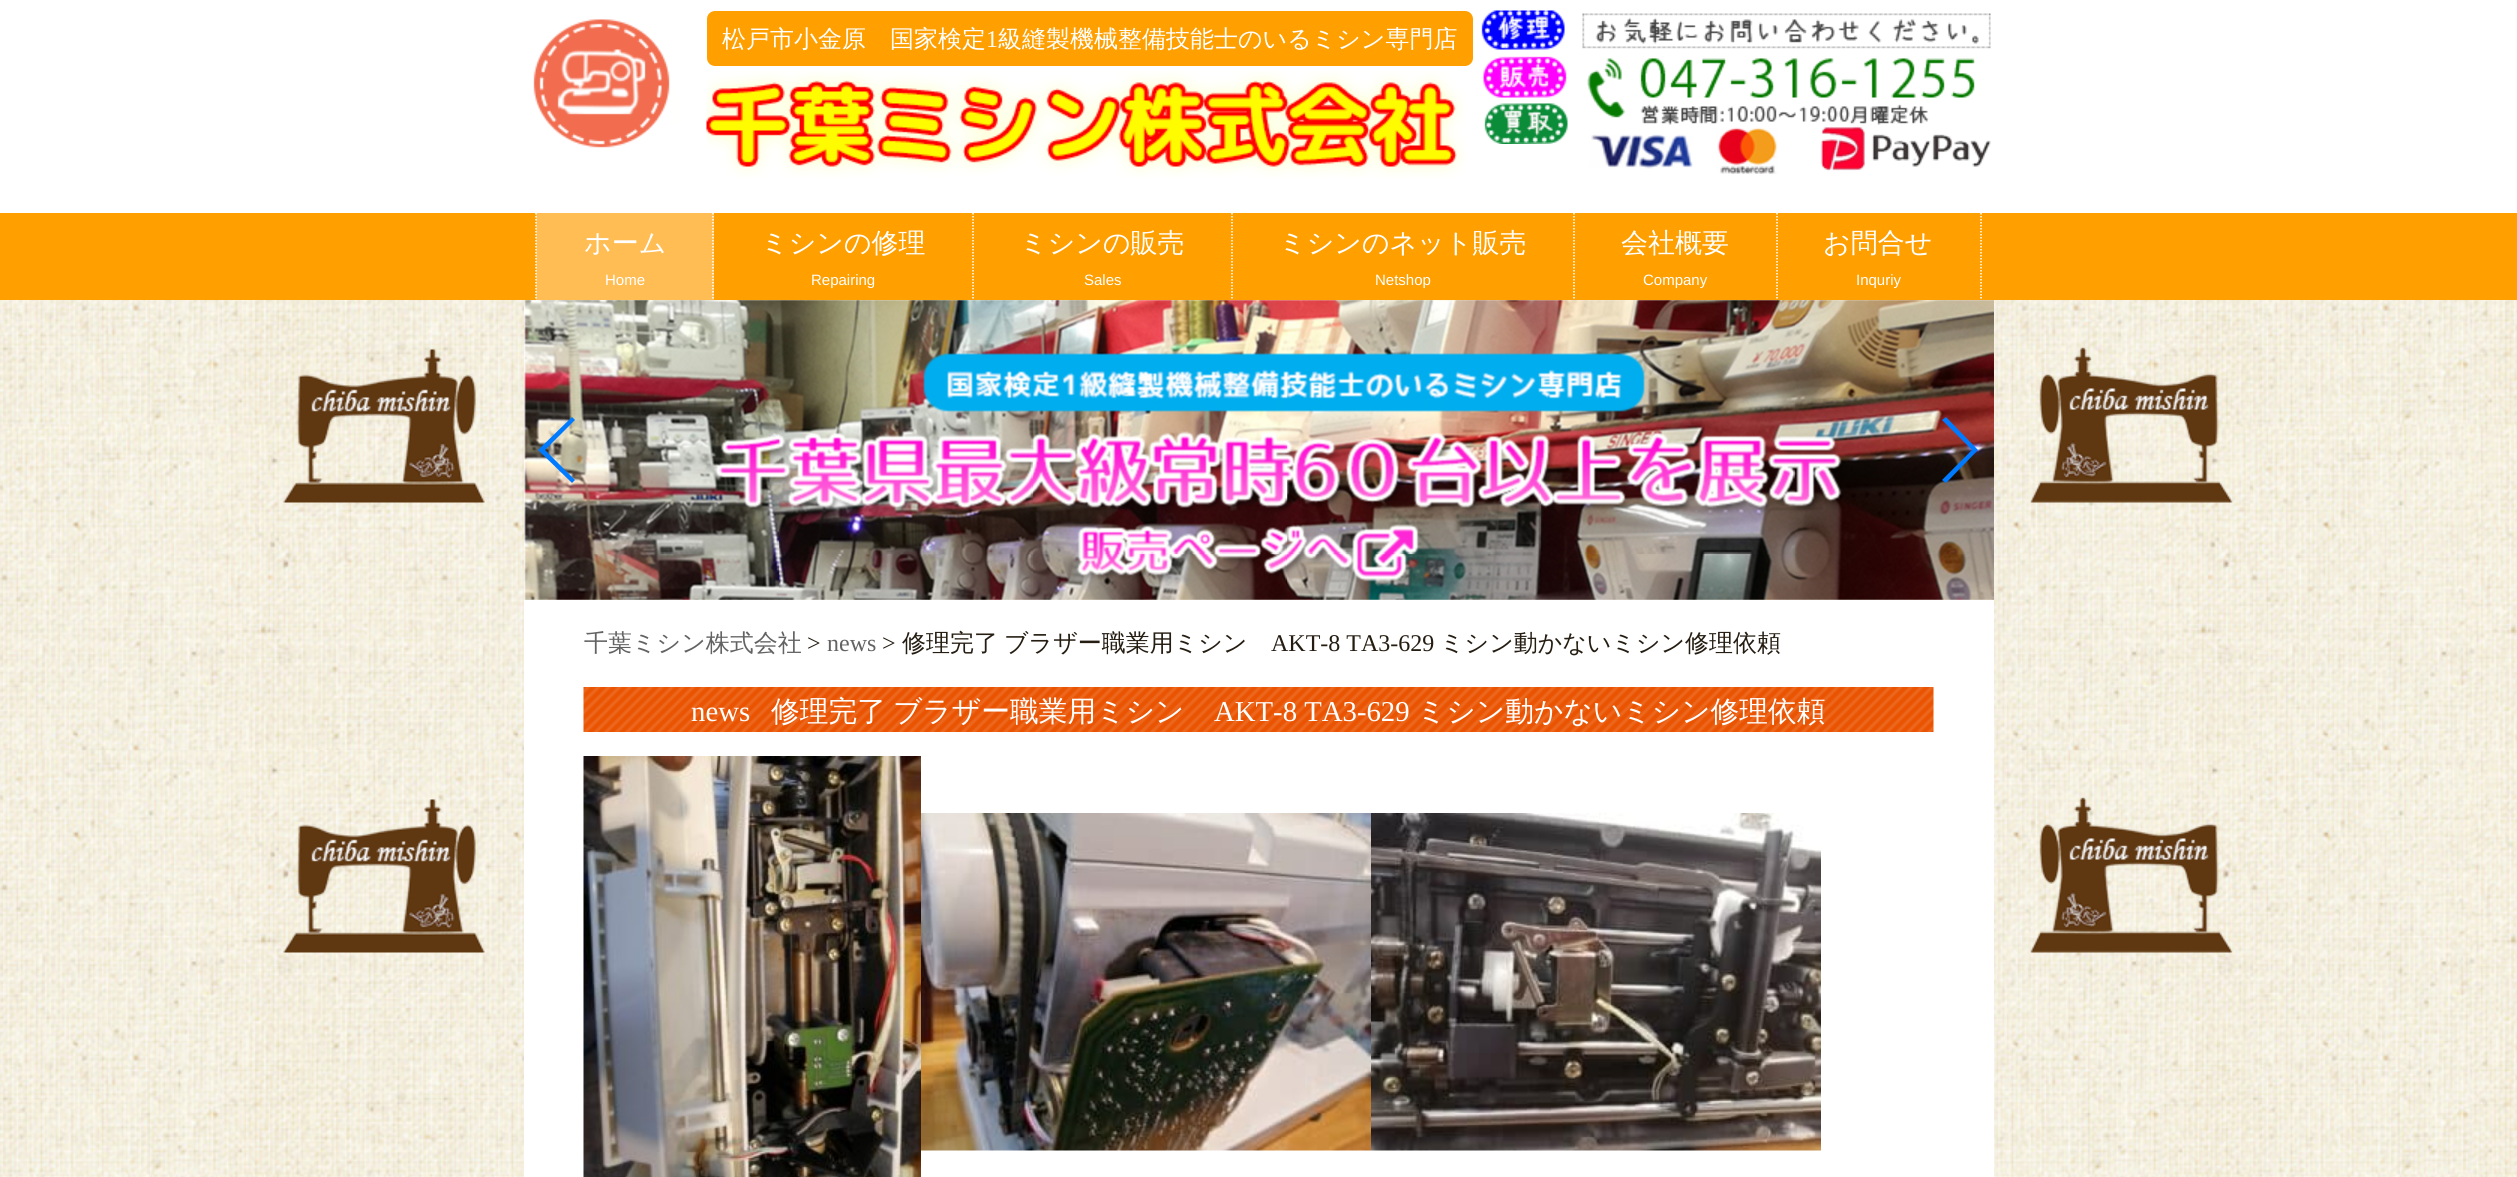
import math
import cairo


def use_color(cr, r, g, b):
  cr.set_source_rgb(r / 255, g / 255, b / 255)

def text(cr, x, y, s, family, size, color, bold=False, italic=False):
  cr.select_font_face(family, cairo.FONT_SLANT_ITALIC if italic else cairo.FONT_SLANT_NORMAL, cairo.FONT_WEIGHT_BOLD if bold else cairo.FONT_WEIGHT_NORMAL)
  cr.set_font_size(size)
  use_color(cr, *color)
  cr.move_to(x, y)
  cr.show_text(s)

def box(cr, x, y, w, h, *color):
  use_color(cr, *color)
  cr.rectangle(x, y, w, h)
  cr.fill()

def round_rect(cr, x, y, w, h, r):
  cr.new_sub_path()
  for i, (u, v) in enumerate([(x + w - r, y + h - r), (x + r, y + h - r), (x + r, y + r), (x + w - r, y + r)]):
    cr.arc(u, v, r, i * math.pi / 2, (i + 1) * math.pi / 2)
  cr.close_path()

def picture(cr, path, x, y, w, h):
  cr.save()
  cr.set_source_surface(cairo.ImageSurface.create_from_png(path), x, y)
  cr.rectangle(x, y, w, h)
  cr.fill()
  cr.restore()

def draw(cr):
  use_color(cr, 255, 255, 255)
  cr.paint()
  picture(cr, "img_01.png", 0, 300, 2517, 877)
  picture(cr, "img_02.png", 533, 19, 145, 129)
  use_color(cr, 255, 159, 0)
  round_rect(cr, 707, 11, 766, 55, 8)
  cr.fill()
  picture(cr, "img_03.png", 706, 70, 760, 108)
  picture(cr, "img_04.png", 1481, 10, 87, 134)
  picture(cr, "img_05.png", 1582, 13, 409, 161)
  box(cr, 0, 213, 2517, 87, 255, 159, 0)
  box(cr, 536, 213, 178, 87, 255, 189, 84)
  cr.new_path()
  cr.move_to(713, 213)
  cr.line_to(713, 300)
  use_color(cr, 255, 255, 255)
  cr.set_line_width(1.5)
  cr.set_dash([1.5, 1.5])
  cr.stroke()
  cr.new_path()
  cr.move_to(536, 213)
  cr.line_to(536, 300)
  cr.stroke()
  cr.new_path()
  cr.move_to(973, 213)
  cr.line_to(973, 300)
  cr.stroke()
  cr.new_path()
  cr.move_to(1232, 213)
  cr.line_to(1232, 300)
  cr.stroke()
  cr.new_path()
  cr.move_to(1574, 213)
  cr.line_to(1574, 300)
  cr.stroke()
  cr.new_path()
  cr.move_to(1777, 213)
  cr.line_to(1777, 300)
  cr.stroke()
  cr.new_path()
  cr.move_to(1981, 213)
  cr.line_to(1981, 300)
  cr.stroke()
  picture(cr, "img_06.png", 283, 347, 1950, 606)
  picture(cr, "img_07.png", 524, 300, 1470, 300)
  use_color(cr, 0, 122, 255)
  cr.new_path()
  cr.move_to(538, 450)
  cr.line_to(572, 417)
  cr.line_to(575, 420)
  cr.line_to(545, 450)
  cr.line_to(575, 480)
  cr.line_to(572, 483)
  cr.close_path()
  cr.fill()
  cr.new_path()
  cr.move_to(1978, 450)
  cr.line_to(1946, 483)
  cr.line_to(1942, 480)
  cr.line_to(1972, 450)
  cr.line_to(1942, 420)
  cr.line_to(1946, 417)
  cr.close_path()
  cr.fill()
  box(cr, 524, 600, 1470, 577, 255, 255, 255)
  picture(cr, "img_08.png", 583, 687, 1351, 45)
  picture(cr, "img_09.png", 583, 756, 338, 421)
  picture(cr, "img_10.png", 921, 813, 450, 338)
  picture(cr, "img_11.png", 1371, 813, 450, 338)
  text(cr, 722, 47, "松戸市小金原　国家検定", "WenQuanYi Zen Hei Medium", 24, (255, 255, 255))
  text(cr, 986, 47, "1", "Liberation Serif", 24, (255, 255, 255))
  text(cr, 998, 47, "級縫製機械整備技能士のいるミシン専門店", "WenQuanYi Zen Hei Medium", 24, (255, 255, 255))
  text(cr, 584, 252, "ホーム", "WenQuanYi Zen Hei Medium", 27, (255, 255, 255))
  text(cr, 605, 285, "Home", "Liberation Sans", 15, (255, 255, 255))
  text(cr, 761, 252, "ミシンの修理", "WenQuanYi Zen Hei Medium", 27, (255, 255, 255))
  text(cr, 811, 285, "Repairing", "Liberation Sans", 15, (255, 255, 255))
  text(cr, 1020, 252, "ミシンの販売", "WenQuanYi Zen Hei Medium", 27, (255, 255, 255))
  text(cr, 1084, 285, "Sales", "Liberation Sans", 15, (255, 255, 255))
  text(cr, 1279, 252, "ミシンのネット販売", "WenQuanYi Zen Hei Medium", 27, (255, 255, 255))
  text(cr, 1375, 285, "Netshop", "Liberation Sans", 15, (255, 255, 255))
  text(cr, 1621, 252, "会社概要", "WenQuanYi Zen Hei Medium", 27, (255, 255, 255))
  text(cr, 1643, 285, "Company", "Liberation Sans", 15, (255, 255, 255))
  text(cr, 1823, 252, "お問合せ", "WenQuanYi Zen Hei Medium", 27, (255, 255, 255))
  text(cr, 1856, 285, "Inquriy", "Liberation Sans", 15, (255, 255, 255))
  text(cr, 584, 651, "千葉ミシン株式会社", "WenQuanYi Zen Hei Medium", 24, (99, 99, 99))
  text(cr, 807, 651, ">", "Liberation Serif", 24, (37, 29, 18))
  text(cr, 827, 651, "news", "Liberation Serif", 24, (99, 99, 99))
  text(cr, 882, 651, ">", "Liberation Serif", 24, (37, 29, 18))
  text(cr, 902, 651, "修理完了", "WenQuanYi Zen Hei Medium", 24, (37, 29, 18))
  text(cr, 1004, 651, "ブラザー職業用ミシン", "WenQuanYi Zen Hei Medium", 24, (37, 29, 18))
  text(cr, 1271, 651, "AKT-8 TA3-629", "Liberation Serif", 24, (37, 29, 18))
  text(cr, 1440, 651, "ミシン動かないミシン修理依頼", "WenQuanYi Zen Hei Medium", 24, (37, 29, 18))
  text(cr, 691, 721, "news", "Liberation Serif", 28.75, (255, 255, 255))
  text(cr, 771, 721, "修理完了", "WenQuanYi Zen Hei Medium", 28.75, (255, 255, 255))
  text(cr, 893, 721, "ブラザー職業用ミシン", "WenQuanYi Zen Hei Medium", 28.75, (255, 255, 255))
  text(cr, 1214, 721, "AKT-8 TA3-629", "Liberation Serif", 28.75, (255, 255, 255))
  text(cr, 1417, 721, "ミシン動かないミシン修理依頼", "WenQuanYi Zen Hei Medium", 28.75, (255, 255, 255))


surface = cairo.ImageSurface(cairo.FORMAT_RGB24, 2517, 1177)
cr = cairo.Context(surface)
options = cairo.FontOptions()
options.set_hint_metrics(cairo.HINT_METRICS_OFF)
options.set_hint_style(cairo.HINT_STYLE_NONE)
cr.set_font_options(options)
cr.set_miter_limit(4)
draw(cr)
surface.write_to_png("out.png")
